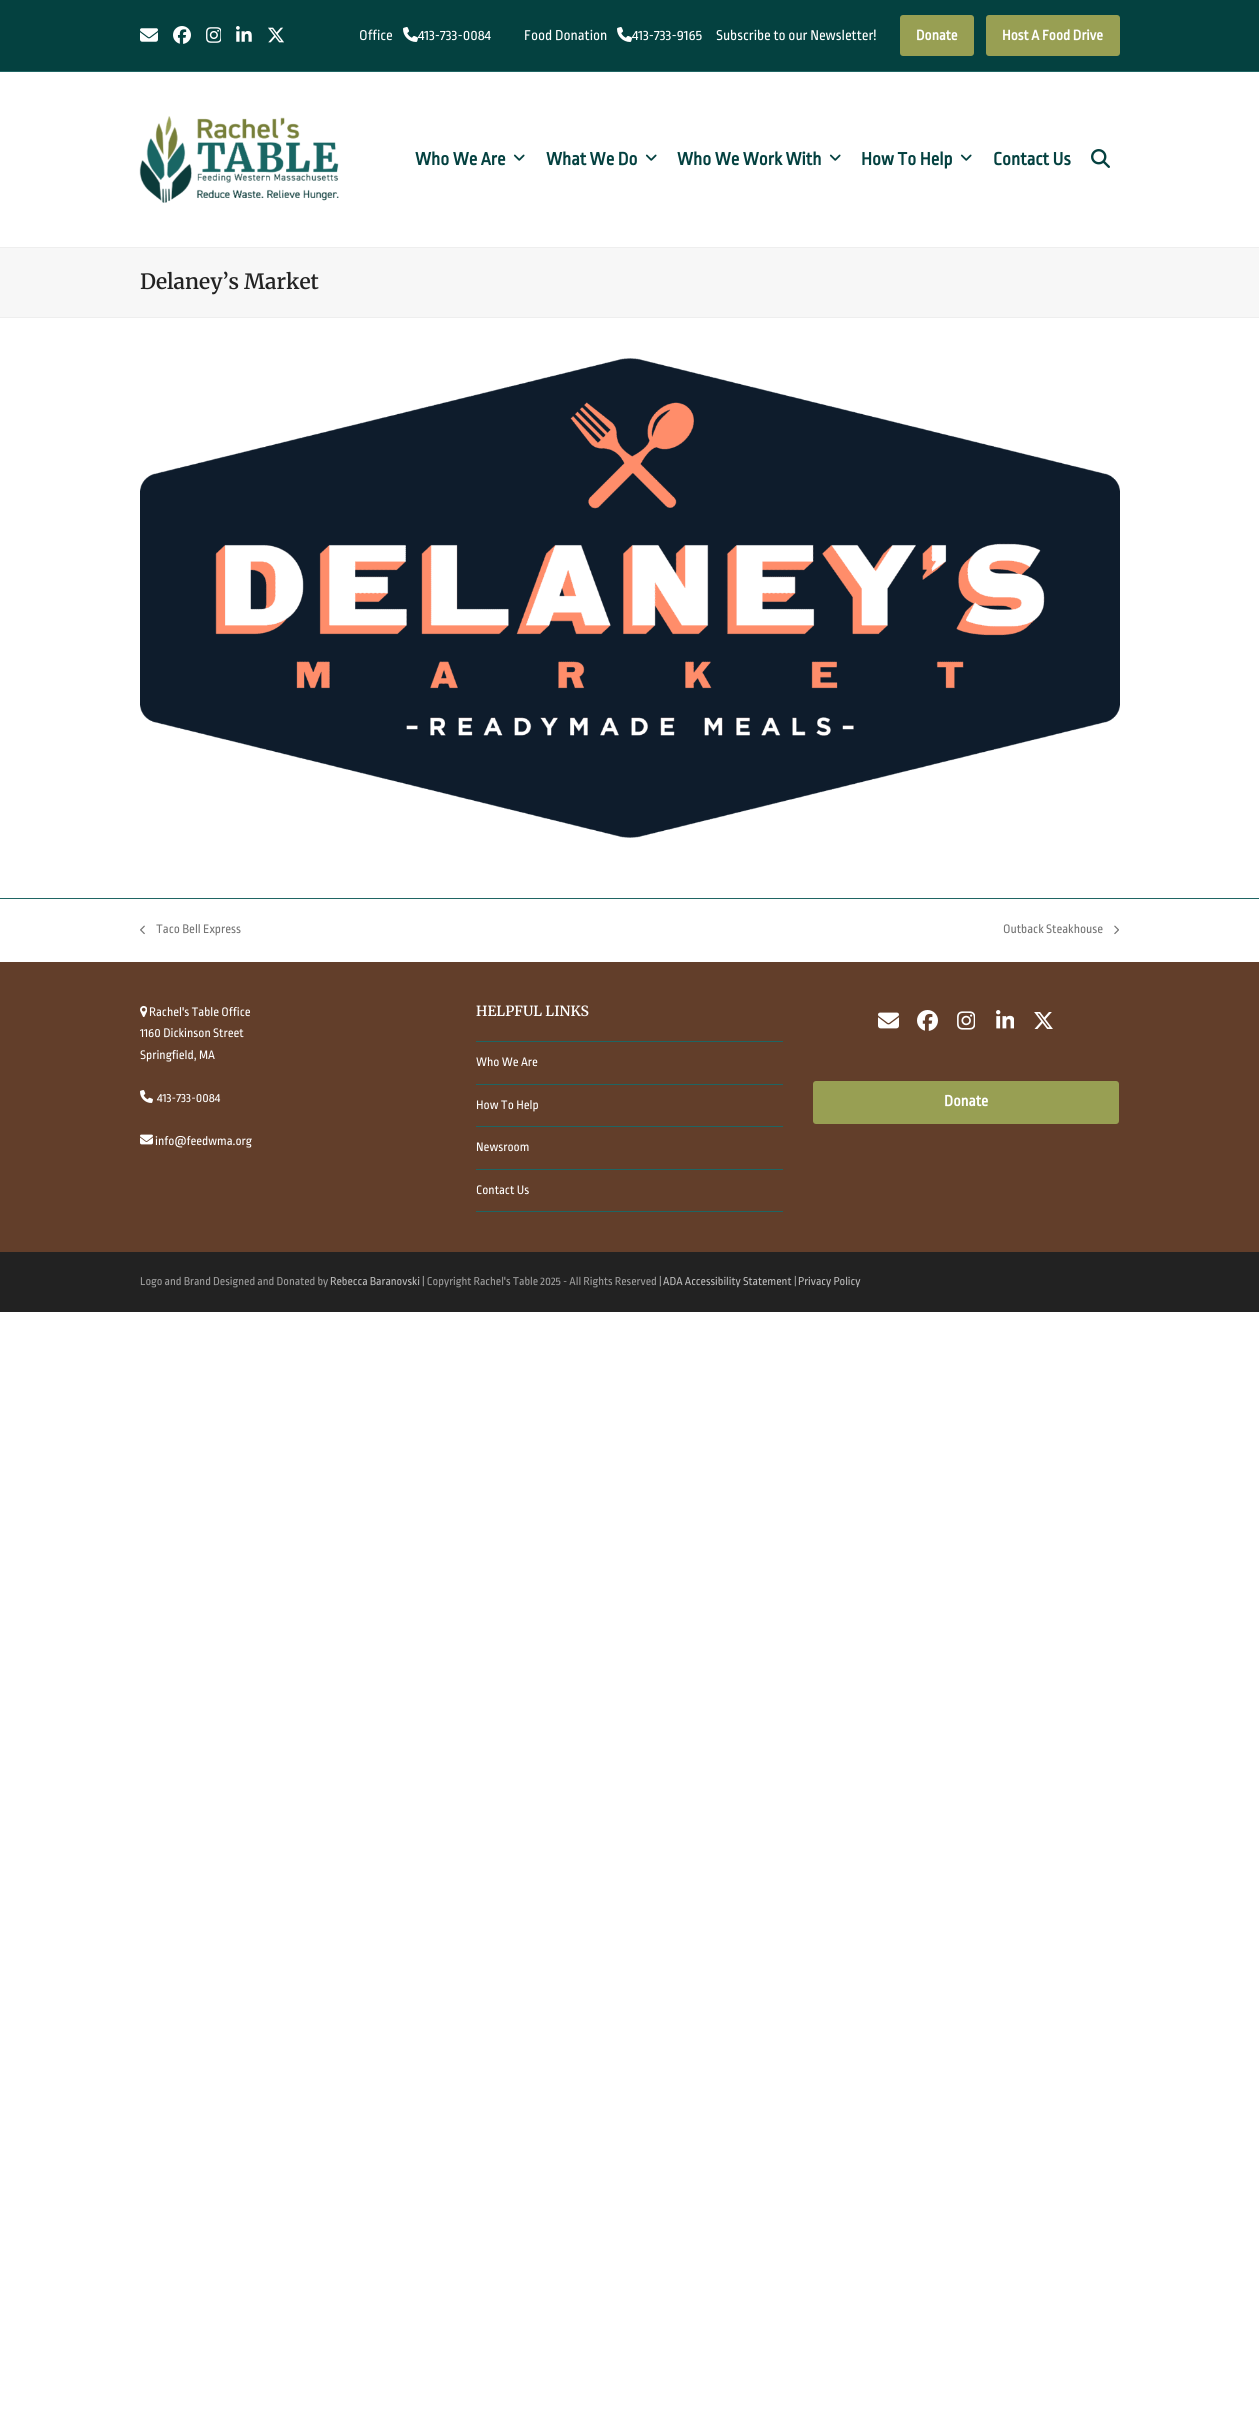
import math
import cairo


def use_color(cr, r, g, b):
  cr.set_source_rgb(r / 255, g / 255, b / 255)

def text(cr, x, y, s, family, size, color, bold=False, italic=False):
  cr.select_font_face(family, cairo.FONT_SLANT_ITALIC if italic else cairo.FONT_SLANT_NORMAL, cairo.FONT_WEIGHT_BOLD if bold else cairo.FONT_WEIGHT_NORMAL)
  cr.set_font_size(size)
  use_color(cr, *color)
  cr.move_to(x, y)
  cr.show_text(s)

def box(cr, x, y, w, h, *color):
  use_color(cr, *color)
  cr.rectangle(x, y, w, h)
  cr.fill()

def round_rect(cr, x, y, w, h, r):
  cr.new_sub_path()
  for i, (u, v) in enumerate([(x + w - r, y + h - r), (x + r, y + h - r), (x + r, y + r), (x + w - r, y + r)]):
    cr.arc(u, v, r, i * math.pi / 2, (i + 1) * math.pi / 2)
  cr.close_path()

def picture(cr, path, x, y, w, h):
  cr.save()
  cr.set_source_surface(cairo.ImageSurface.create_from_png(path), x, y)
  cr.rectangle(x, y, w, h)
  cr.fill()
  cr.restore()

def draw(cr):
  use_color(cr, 255, 255, 255)
  cr.paint()
  box(cr, 0, 0, 1259, 71, 4, 65, 64)
  box(cr, 0, 71, 1259, 1, 31, 101, 99)
  picture(cr, "img_01.png", 140, 28, 18, 14)
  picture(cr, "img_02.png", 173, 26, 18, 18)
  picture(cr, "img_03.png", 206, 27, 15, 16)
  picture(cr, "img_04.png", 236, 26, 16, 16)
  picture(cr, "img_05.png", 268, 27, 16, 16)
  picture(cr, "img_07.png", 617, 27, 15, 15)
  use_color(cr, 152, 159, 83)
  round_rect(cr, 900, 15, 74, 41, 3)
  cr.fill()
  round_rect(cr, 986, 15, 134, 41, 3)
  cr.fill()
  picture(cr, "img_08.png", 139, 116, 200, 87)
  picture(cr, "img_09.png", 513, 154, 12, 7)
  picture(cr, "img_09.png", 645, 154, 12, 7)
  picture(cr, "img_09.png", 829, 154, 12, 7)
  picture(cr, "img_09.png", 960, 154, 12, 7)
  picture(cr, "img_10.png", 1091, 149, 19, 19)
  box(cr, 0, 248, 1259, 69, 247, 247, 247)
  box(cr, 0, 247, 1259, 1, 238, 238, 238)
  box(cr, 0, 317, 1259, 1, 238, 238, 238)
  picture(cr, "img_11.png", 140, 358, 980, 480)
  box(cr, 0, 898, 1259, 1, 31, 101, 99)
  picture(cr, "img_12.png", 140, 925, 5, 10)
  picture(cr, "img_13.png", 1114, 925, 5, 10)
  box(cr, 0, 962, 1259, 290, 98, 62, 42)
  picture(cr, "img_14.png", 140, 1005, 7, 12)
  picture(cr, "img_15.png", 140, 1090, 13, 13)
  picture(cr, "img_16.png", 140, 1134, 13, 11)
  box(cr, 476, 1041, 307, 1, 31, 101, 99)
  box(cr, 476, 1084, 307, 1, 31, 101, 99)
  box(cr, 476, 1126, 307, 1, 31, 101, 99)
  box(cr, 476, 1169, 307, 1, 31, 101, 99)
  box(cr, 476, 1211, 307, 1, 31, 101, 99)
  picture(cr, "img_17.png", 878, 1012, 21, 17)
  picture(cr, "img_18.png", 917, 1010, 21, 21)
  picture(cr, "img_19.png", 957, 1011, 18, 19)
  picture(cr, "img_20.png", 996, 1010, 18, 19)
  picture(cr, "img_21.png", 1034, 1012, 19, 17)
  use_color(cr, 152, 159, 83)
  round_rect(cr, 813, 1081, 306, 43, 3)
  cr.fill()
  box(cr, 0, 1252, 1259, 60, 34, 34, 34)
  text(cr, 359, 40, "Office", "Ropa Sans", 15, (255, 255, 255))
  text(cr, 418, 40, "413-733-0084", "Ropa Sans", 15, (255, 255, 255))
  picture(cr, "img_06.png", 403, 27, 15, 15)
  text(cr, 524, 40, "Food Donation", "Ropa Sans", 15, (255, 255, 255))
  text(cr, 632, 40, "413-733-9165", "Ropa Sans", 15, (255, 255, 255))
  text(cr, 716, 40, "Subscribe to our Newsletter!", "Ropa Sans", 15, (255, 255, 255))
  text(cr, 916, 40, "Donate", "Ropa Sans", 15, (255, 255, 255), bold=True)
  text(cr, 1002, 40, "Host A Food Drive", "Ropa Sans", 15, (255, 255, 255), bold=True)
  text(cr, 415, 165, "Who We Are", "Ropa Sans", 19, (4, 65, 64), bold=True)
  text(cr, 546, 165, "What We Do", "Ropa Sans", 19, (4, 65, 64), bold=True)
  text(cr, 677, 165, "Who We Work With", "Ropa Sans", 19, (4, 65, 64), bold=True)
  text(cr, 861, 165, "How To Help", "Ropa Sans", 19, (4, 65, 64), bold=True)
  text(cr, 993, 165, "Contact Us", "Ropa Sans", 19, (4, 65, 64), bold=True)
  text(cr, 140, 289, "Delaney’s Market", "Merriweather SemiBold", 21, (34, 34, 34))
  text(cr, 156, 933, "Taco Bell Express", "Ropa Sans", 13, (117, 117, 117))
  text(cr, 1003, 933, "Outback Steakhouse", "Ropa Sans", 13, (117, 117, 117))
  text(cr, 149, 1016, "Rachel's Table Office", "Ropa Sans", 13, (255, 255, 255))
  text(cr, 140, 1037, "1160 Dickinson Street", "Ropa Sans", 13, (255, 255, 255))
  text(cr, 140, 1059, "Springfield, MA", "Ropa Sans", 13, (255, 255, 255))
  text(cr, 157, 1102, "413-733-0084", "Ropa Sans", 13, (255, 255, 255))
  text(cr, 155, 1145, "info@feedwma.org", "Ropa Sans", 13, (255, 255, 255))
  text(cr, 476, 1016, "HELPFUL LINKS", "Merriweather SemiBold", 14, (255, 255, 255))
  text(cr, 476, 1066, "Who We Are", "Ropa Sans", 13, (255, 255, 255))
  text(cr, 476, 1109, "How To Help", "Ropa Sans", 13, (255, 255, 255))
  text(cr, 476, 1151, "Newsroom", "Ropa Sans", 13, (255, 255, 255))
  text(cr, 476, 1194, "Contact Us", "Ropa Sans", 13, (255, 255, 255))
  text(cr, 944, 1106, "Donate", "Ropa Sans", 16, (255, 255, 255), bold=True)
  text(cr, 140, 1285, "Logo and Brand Designed and Donated by", "Ropa Sans", 12, (158, 158, 158))
  text(cr, 330, 1285, "Rebecca Baranovski", "Ropa Sans", 12, (189, 189, 189))
  text(cr, 422, 1285, "| Copyright Rachel's Table 2025 - All Rights Reserved |", "Ropa Sans", 12, (158, 158, 158))
  text(cr, 663, 1285, "ADA Accessibility Statement", "Ropa Sans", 12, (189, 189, 189))
  text(cr, 794, 1285, "|", "Ropa Sans", 12, (158, 158, 158))
  text(cr, 798, 1285, "Privacy Policy", "Ropa Sans", 12, (189, 189, 189))


surface = cairo.ImageSurface(cairo.FORMAT_RGB24, 1259, 2417)
cr = cairo.Context(surface)
options = cairo.FontOptions()
options.set_hint_metrics(cairo.HINT_METRICS_OFF)
options.set_hint_style(cairo.HINT_STYLE_NONE)
cr.set_font_options(options)
cr.set_miter_limit(4)
draw(cr)
surface.write_to_png("out.png")
